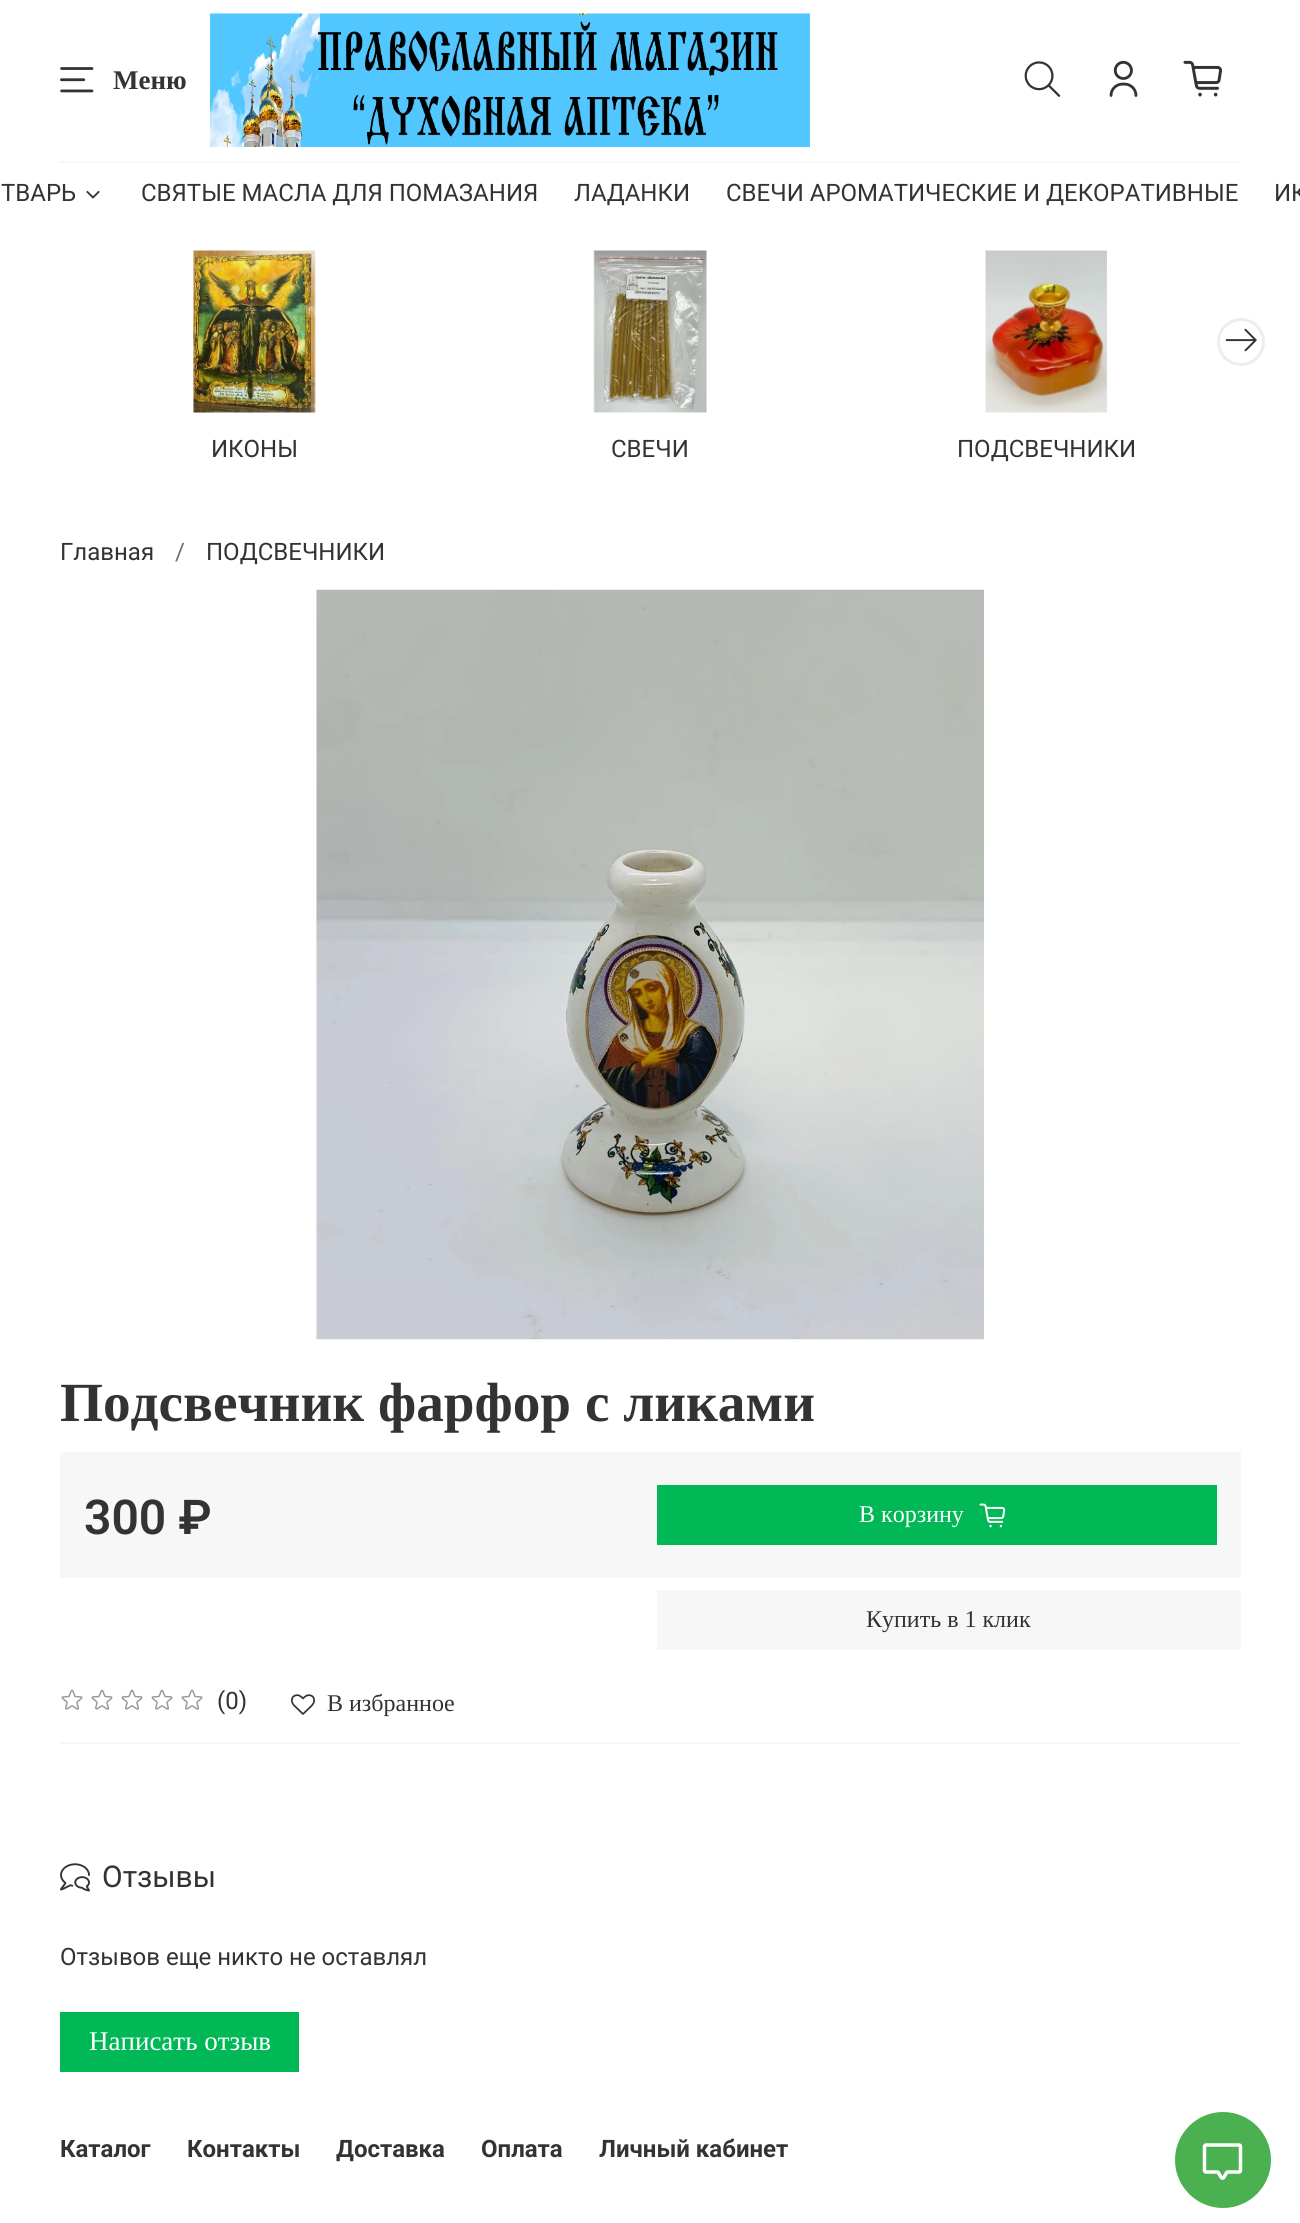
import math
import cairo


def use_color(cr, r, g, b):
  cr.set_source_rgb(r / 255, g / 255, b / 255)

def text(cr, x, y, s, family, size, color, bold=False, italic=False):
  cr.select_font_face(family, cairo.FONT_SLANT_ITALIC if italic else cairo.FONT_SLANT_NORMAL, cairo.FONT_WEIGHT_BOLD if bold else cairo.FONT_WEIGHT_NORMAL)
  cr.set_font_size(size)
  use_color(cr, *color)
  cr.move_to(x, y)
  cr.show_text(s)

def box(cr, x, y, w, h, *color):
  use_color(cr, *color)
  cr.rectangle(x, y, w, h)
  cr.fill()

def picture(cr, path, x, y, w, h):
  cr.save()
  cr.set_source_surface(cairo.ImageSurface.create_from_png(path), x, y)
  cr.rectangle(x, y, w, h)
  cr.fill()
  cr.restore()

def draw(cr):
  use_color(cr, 255, 255, 255)
  cr.paint()
  picture(cr, "img_01.png", 60, 67, 34, 26)
  picture(cr, "img_02.png", 210, 13, 600, 134)
  picture(cr, "img_03.png", 1024, 61, 37, 36)
  picture(cr, "img_04.png", 1109, 60, 29, 37)
  picture(cr, "img_05.png", 1183, 60, 39, 37)
  box(cr, 60, 161, 1181, 2, 247, 247, 247)
  picture(cr, "img_06.png", 86, 190, 14, 9)
  cr.arc(1241, 342, 22.5, 0, 2 * math.pi)
  use_color(cr, 237, 237, 237)
  cr.set_line_width(3)
  cr.stroke()
  picture(cr, "img_07.png", 1225, 328, 32, 24)
  picture(cr, "img_08.png", 193, 250, 123, 163)
  picture(cr, "img_09.png", 593, 250, 114, 163)
  picture(cr, "img_10.png", 985, 250, 122, 163)
  picture(cr, "img_11.png", 316, 589, 668, 751)
  box(cr, 60, 1452, 1181, 126, 247, 247, 247)
  box(cr, 657, 1485, 560, 60, 0, 185, 86)
  picture(cr, "img_12.png", 979, 1503, 27, 25)
  box(cr, 657, 1590, 584, 60, 247, 247, 247)
  box(cr, 60, 1742, 1181, 2, 247, 247, 247)
  picture(cr, "img_13.png", 61, 1689, 22, 21)
  picture(cr, "img_13.png", 91, 1689, 22, 21)
  picture(cr, "img_13.png", 121, 1689, 22, 21)
  picture(cr, "img_13.png", 151, 1689, 22, 21)
  picture(cr, "img_13.png", 181, 1689, 22, 21)
  picture(cr, "img_14.png", 291, 1694, 24, 21)
  picture(cr, "img_15.png", 60, 1863, 30, 29)
  box(cr, 60, 2012, 239, 60, 0, 185, 86)
  use_color(cr, 75, 176, 79)
  cr.arc(1223, 2160, 48, 0, 2 * math.pi)
  cr.fill()
  picture(cr, "img_16.png", 1202, 2143, 41, 37)
  text(cr, 113, 89, "Меню", "Liberation Serif", 27, (51, 51, 51), bold=True)
  text(cr, 1, 201, "ТВАРЬ", "Roboto", 24, (51, 51, 51))
  text(cr, 141, 201, "СВЯТЫЕ МАСЛА ДЛЯ ПОМАЗАНИЯ", "Roboto", 24, (51, 51, 51))
  text(cr, 574, 201, "ЛАДАНКИ", "Roboto", 24, (51, 51, 51))
  text(cr, 726, 201, "СВЕЧИ АРОМАТИЧЕСКИЕ И ДЕКОРАТИВНЫЕ", "Roboto", 24, (51, 51, 51))
  text(cr, 1274, 201, "ИК", "Roboto", 24, (51, 51, 51))
  text(cr, 211, 457, "ИКОНЫ", "Roboto", 24, (51, 51, 51))
  text(cr, 611, 457, "СВЕЧИ", "Roboto", 24, (51, 51, 51))
  text(cr, 957, 457, "ПОДСВЕЧНИКИ", "Roboto", 24, (51, 51, 51))
  text(cr, 60, 560, "Главная", "Roboto", 24, (51, 51, 51))
  text(cr, 175, 560, "/", "Roboto", 24, (112, 112, 112))
  text(cr, 206, 560, "ПОДСВЕЧНИКИ", "Roboto", 24, (51, 51, 51))
  text(cr, 60, 1421, "Подсвечник фарфор с ликами", "Liberation Serif", 55.25, (51, 51, 51), bold=True)
  text(cr, 84, 1534, "300 ₽", "Roboto SemiBold", 48, (51, 51, 51))
  text(cr, 859, 1522, "В корзину", "Liberation Serif", 24, (255, 255, 255))
  text(cr, 866, 1627, "Купить в 1 клик", "Liberation Serif", 24, (51, 51, 51))
  text(cr, 217, 1709, "(0)", "Roboto", 24, (51, 51, 51))
  text(cr, 327, 1711, "В избранное", "Liberation Serif", 24, (51, 51, 51))
  text(cr, 102, 1887, "Отзывы", "Roboto", 30, (51, 51, 51))
  text(cr, 60, 1965, "Отзывов еще никто не оставлял", "Roboto", 24, (51, 51, 51))
  text(cr, 89, 2050, "Написать отзыв", "Liberation Serif", 27, (255, 255, 255))
  text(cr, 60, 2157, "Каталог", "Roboto", 24, (51, 51, 51), bold=True)
  text(cr, 187, 2157, "Контакты", "Roboto", 24, (51, 51, 51), bold=True)
  text(cr, 336, 2157, "Доставка", "Roboto", 24, (51, 51, 51), bold=True)
  text(cr, 481, 2157, "Оплата", "Roboto", 24, (51, 51, 51), bold=True)
  text(cr, 599, 2157, "Личный кабинет", "Roboto", 24, (51, 51, 51), bold=True)


surface = cairo.ImageSurface(cairo.FORMAT_RGB24, 1300, 2223)
cr = cairo.Context(surface)
options = cairo.FontOptions()
options.set_hint_metrics(cairo.HINT_METRICS_OFF)
options.set_hint_style(cairo.HINT_STYLE_NONE)
cr.set_font_options(options)
cr.set_miter_limit(4)
draw(cr)
surface.write_to_png("out.png")
